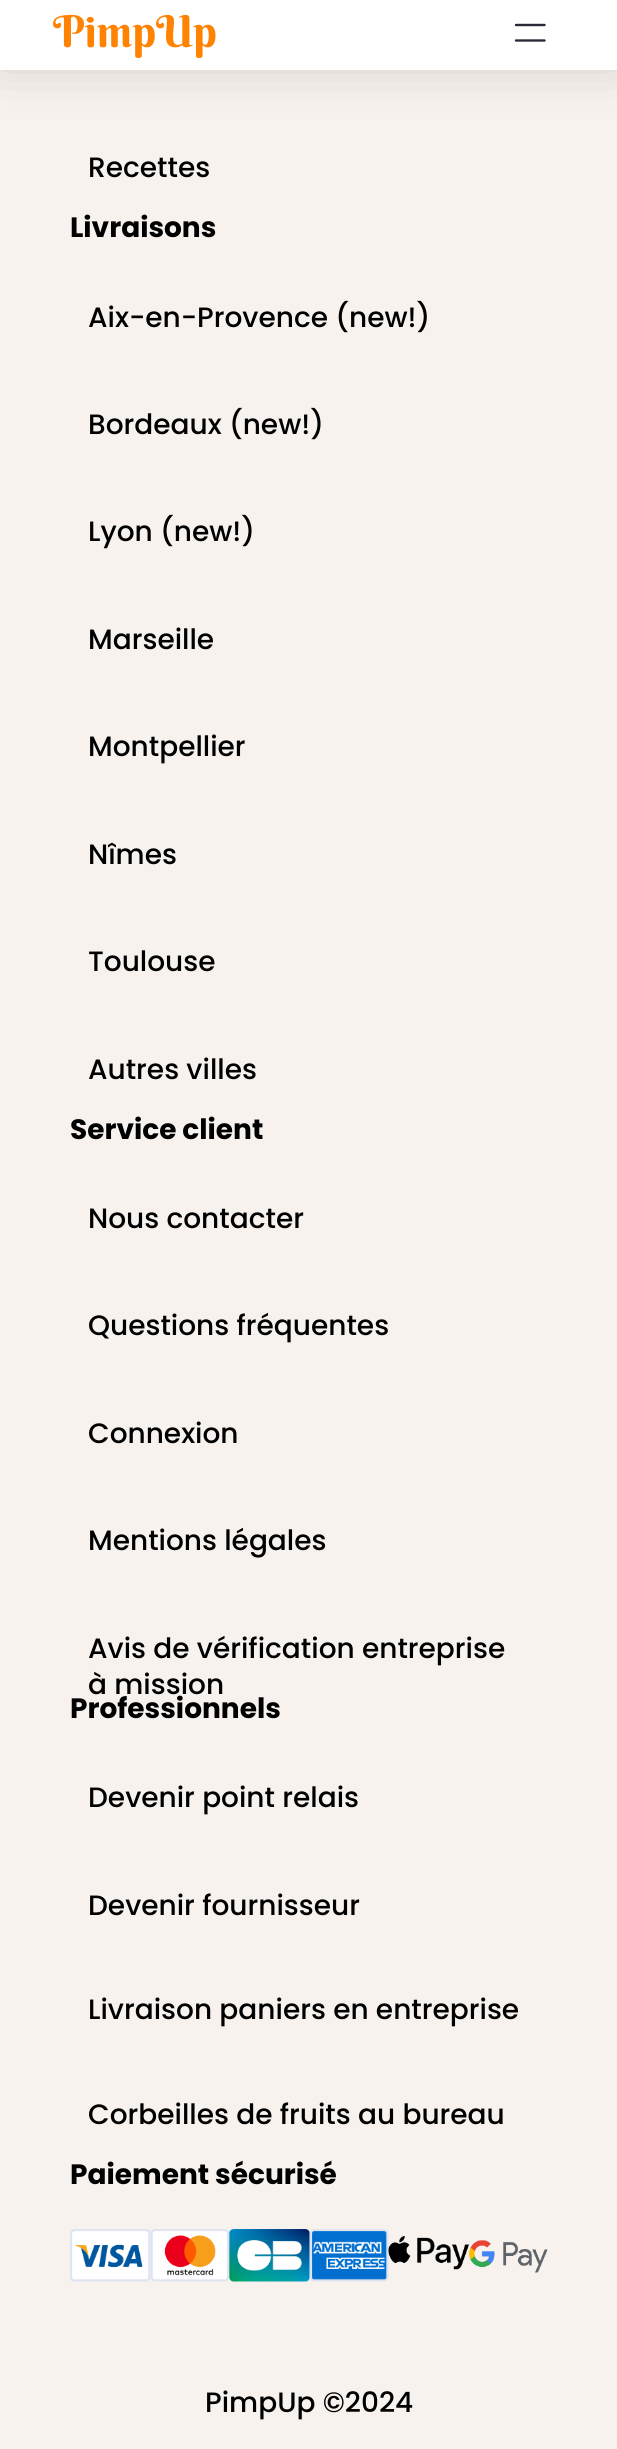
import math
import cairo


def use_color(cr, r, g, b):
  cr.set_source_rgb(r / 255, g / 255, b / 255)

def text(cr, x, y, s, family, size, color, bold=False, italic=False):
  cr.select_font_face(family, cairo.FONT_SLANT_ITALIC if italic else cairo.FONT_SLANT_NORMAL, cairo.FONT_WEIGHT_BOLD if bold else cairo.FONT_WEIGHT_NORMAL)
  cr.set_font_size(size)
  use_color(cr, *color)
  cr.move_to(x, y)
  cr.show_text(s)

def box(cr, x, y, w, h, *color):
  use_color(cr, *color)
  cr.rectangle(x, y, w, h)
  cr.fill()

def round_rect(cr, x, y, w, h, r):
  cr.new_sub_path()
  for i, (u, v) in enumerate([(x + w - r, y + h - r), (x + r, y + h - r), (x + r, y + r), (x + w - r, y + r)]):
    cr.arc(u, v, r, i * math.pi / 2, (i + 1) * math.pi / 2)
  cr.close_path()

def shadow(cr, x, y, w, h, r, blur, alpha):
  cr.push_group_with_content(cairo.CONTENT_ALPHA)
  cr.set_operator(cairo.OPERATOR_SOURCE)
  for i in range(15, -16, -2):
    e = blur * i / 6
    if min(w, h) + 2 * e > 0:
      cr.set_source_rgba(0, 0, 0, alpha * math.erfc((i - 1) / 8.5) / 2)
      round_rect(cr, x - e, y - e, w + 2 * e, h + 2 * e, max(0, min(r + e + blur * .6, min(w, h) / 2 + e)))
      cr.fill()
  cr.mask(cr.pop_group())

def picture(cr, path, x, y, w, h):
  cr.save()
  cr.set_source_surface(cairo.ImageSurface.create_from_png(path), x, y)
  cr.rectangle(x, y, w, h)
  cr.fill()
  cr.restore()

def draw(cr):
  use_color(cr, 247, 242, 238)
  cr.paint()
  use_color(cr, 0, 0, 0)
  shadow(cr, 0, -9, 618, 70, 0, 26, 0.2)
  box(cr, 0, 0, 617, 70, 255, 255, 255)
  cr.new_path()
  cr.move_to(516, 25)
  cr.line_to(544.5, 25)
  cr.move_to(516, 40.5)
  cr.line_to(544.5, 40.5)
  use_color(cr, 40, 41, 55)
  cr.set_line_width(2.4)
  cr.set_line_cap(cairo.LINE_CAP_ROUND)
  cr.set_line_join(cairo.LINE_JOIN_ROUND)
  cr.stroke()
  picture(cr, "img_01.png", 70, 2229, 81, 53)
  picture(cr, "img_02.png", 150, 2229, 80, 53)
  picture(cr, "img_03.png", 229, 2229, 81, 53)
  picture(cr, "img_04.png", 309, 2229, 80, 53)
  picture(cr, "img_05.png", 388, 2236, 81, 34)
  picture(cr, "img_06.png", 469, 2240, 79, 33)
  text(cr, 53, 47, "PimpUp", "Berkshire Swash", 44, (255, 130, 0))
  text(cr, 88, 177, "Recettes", "Poppins Medium", 28, (0, 0, 0))
  text(cr, 70, 237, "Livraisons", "Poppins", 28, (0, 0, 0), bold=True)
  text(cr, 88, 327, "Aix-en-Provence (new!)", "Poppins Medium", 28, (0, 0, 0))
  text(cr, 88, 434, "Bordeaux (new!)", "Poppins Medium", 28, (0, 0, 0))
  text(cr, 88, 541, "Lyon (new!)", "Poppins Medium", 28, (0, 0, 0))
  text(cr, 88, 649, "Marseille", "Poppins Medium", 28, (0, 0, 0))
  text(cr, 88, 756, "Montpellier", "Poppins Medium", 28, (0, 0, 0))
  text(cr, 88, 864, "Nîmes", "Poppins Medium", 28, (0, 0, 0))
  text(cr, 88, 971, "Toulouse", "Poppins Medium", 28, (0, 0, 0))
  text(cr, 88, 1079, "Autres villes", "Poppins Medium", 28, (0, 0, 0))
  text(cr, 70, 1139, "Service client", "Poppins", 28, (0, 0, 0), bold=True)
  text(cr, 88, 1228, "Nous contacter", "Poppins Medium", 28, (0, 0, 0))
  text(cr, 88, 1335, "Questions fréquentes", "Poppins Medium", 28, (0, 0, 0))
  text(cr, 88, 1443, "Connexion", "Poppins Medium", 28, (0, 0, 0))
  text(cr, 88, 1550, "Mentions légales", "Poppins Medium", 28, (0, 0, 0))
  text(cr, 88, 1658, "Avis de vérification entreprise", "Poppins Medium", 28, (0, 0, 0))
  text(cr, 88, 1694, "à mission", "Poppins Medium", 28, (0, 0, 0))
  text(cr, 70, 1718, "Professionnels", "Poppins", 28, (0, 0, 0), bold=True)
  text(cr, 88, 1807, "Devenir point relais", "Poppins Medium", 28, (0, 0, 0))
  text(cr, 88, 1915, "Devenir fournisseur", "Poppins Medium", 28, (0, 0, 0))
  text(cr, 88, 2019, "Livraison paniers en entreprise", "Poppins Medium", 28, (0, 0, 0))
  text(cr, 88, 2124, "Corbeilles de fruits au bureau", "Poppins Medium", 28, (0, 0, 0))
  text(cr, 70, 2184, "Paiement sécurisé", "Poppins", 28, (0, 0, 0), bold=True)
  text(cr, 205, 2412, "PimpUp ©2024", "Poppins Medium", 28, (0, 0, 0))


surface = cairo.ImageSurface(cairo.FORMAT_RGB24, 617, 2449)
cr = cairo.Context(surface)
options = cairo.FontOptions()
options.set_hint_metrics(cairo.HINT_METRICS_OFF)
options.set_hint_style(cairo.HINT_STYLE_NONE)
cr.set_font_options(options)
cr.set_miter_limit(4)
draw(cr)
surface.write_to_png("out.png")
